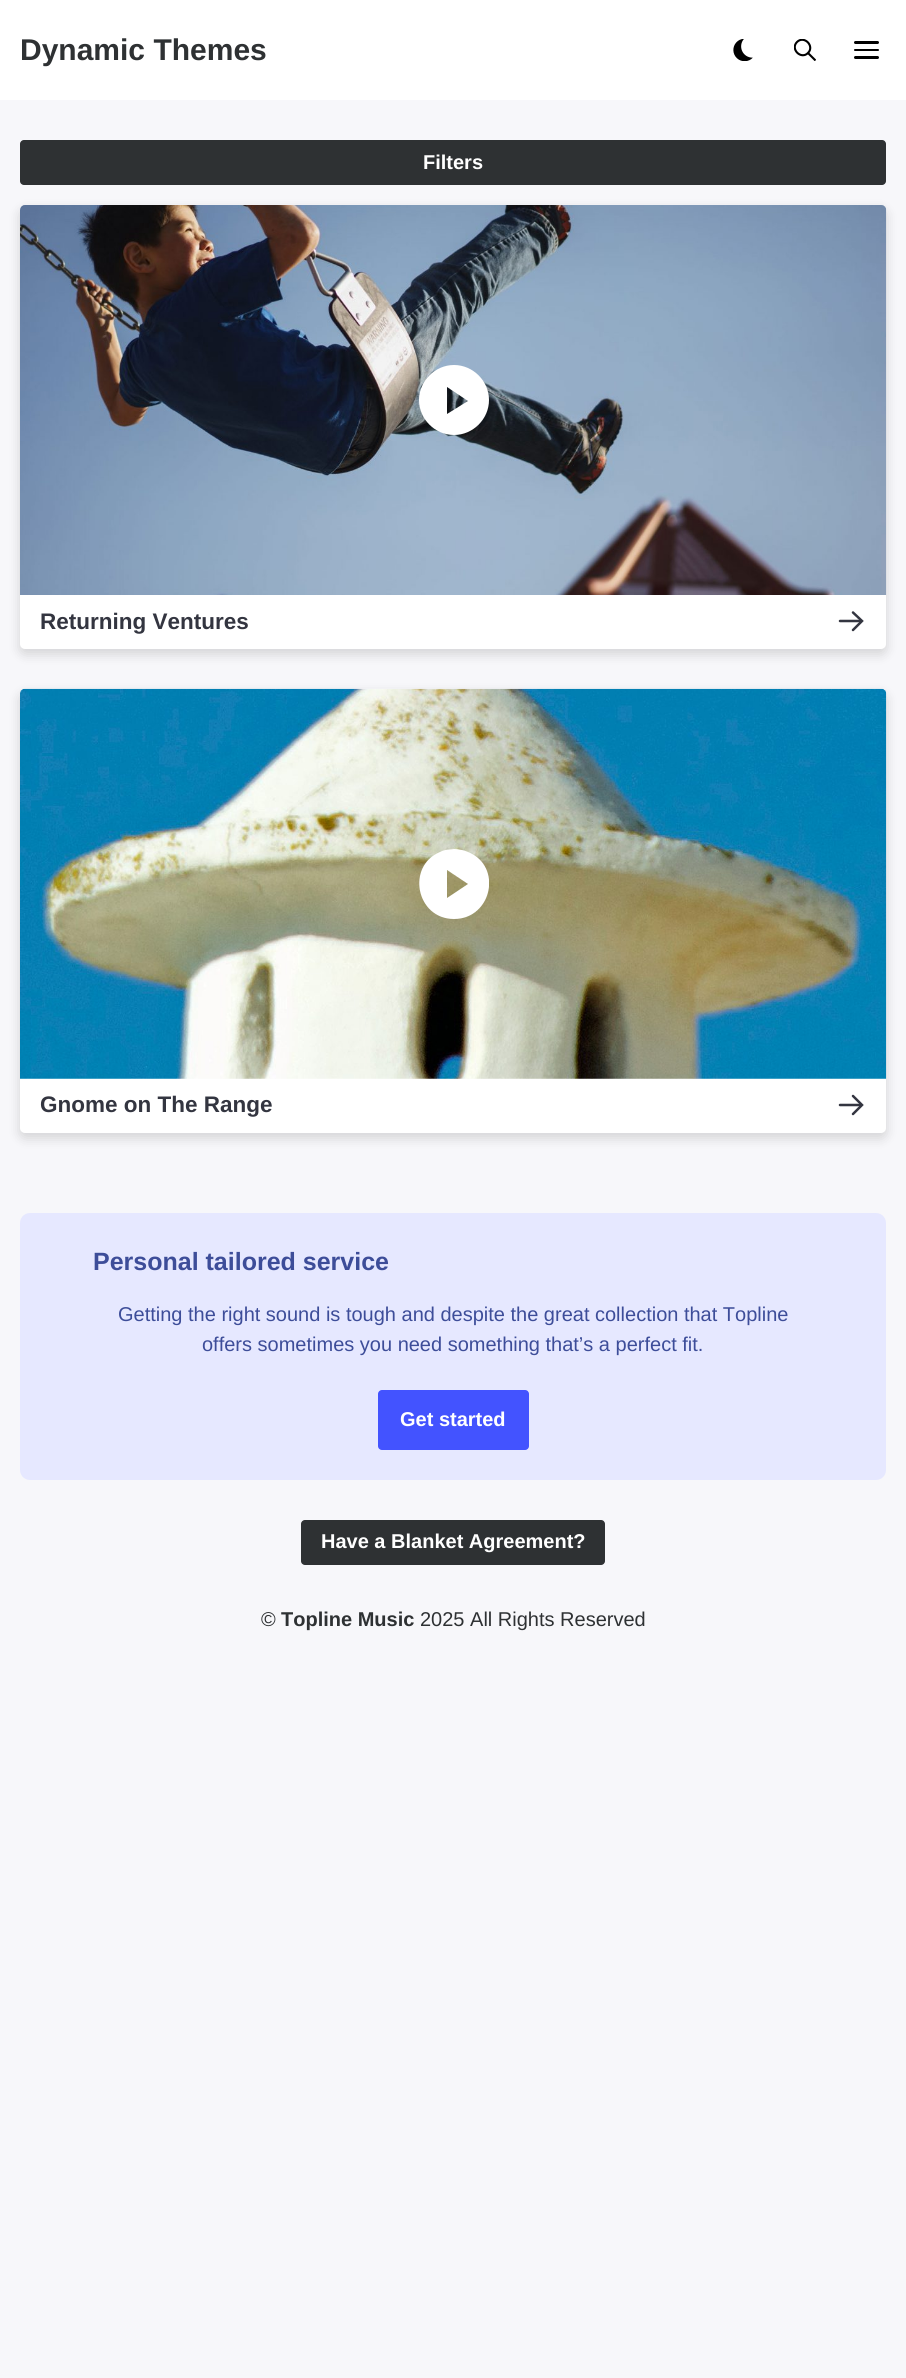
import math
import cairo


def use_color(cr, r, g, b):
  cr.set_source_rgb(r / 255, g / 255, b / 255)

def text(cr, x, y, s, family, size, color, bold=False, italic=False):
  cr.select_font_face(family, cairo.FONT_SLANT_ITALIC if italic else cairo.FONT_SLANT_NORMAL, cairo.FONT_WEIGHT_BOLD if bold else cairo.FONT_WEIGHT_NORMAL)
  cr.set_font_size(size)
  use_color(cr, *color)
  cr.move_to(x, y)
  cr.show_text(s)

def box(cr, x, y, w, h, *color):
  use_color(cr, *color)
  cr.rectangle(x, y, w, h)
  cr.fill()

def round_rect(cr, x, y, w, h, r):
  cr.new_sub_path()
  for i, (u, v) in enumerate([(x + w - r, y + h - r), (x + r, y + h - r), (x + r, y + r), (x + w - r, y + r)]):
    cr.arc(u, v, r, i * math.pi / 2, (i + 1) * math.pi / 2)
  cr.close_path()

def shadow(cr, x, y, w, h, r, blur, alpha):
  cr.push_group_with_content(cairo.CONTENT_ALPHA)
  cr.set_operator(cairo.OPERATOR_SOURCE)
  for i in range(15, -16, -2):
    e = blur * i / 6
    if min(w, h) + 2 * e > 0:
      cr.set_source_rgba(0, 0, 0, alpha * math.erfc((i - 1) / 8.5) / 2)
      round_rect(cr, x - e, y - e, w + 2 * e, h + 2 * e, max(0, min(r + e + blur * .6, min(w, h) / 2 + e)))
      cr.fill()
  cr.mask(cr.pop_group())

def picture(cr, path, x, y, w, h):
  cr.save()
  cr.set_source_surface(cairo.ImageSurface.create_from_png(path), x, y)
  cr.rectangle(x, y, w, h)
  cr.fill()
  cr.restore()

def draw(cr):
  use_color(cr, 255, 255, 255)
  cr.paint()
  picture(cr, "img_01.png", 733, 39, 20, 22)
  cr.save()
  cr.rectangle(794, 39, 22, 22)
  cr.clip()
  cr.new_path()
  cr.move_to(808, 53)
  cr.curve_to(801, 60, 790, 49, 797, 42)
  cr.curve_to(804, 35, 815, 46, 808, 53)
  cr.line_to(815.5, 60.5)
  cr.close_path()
  use_color(cr, 0, 0, 0)
  cr.set_line_width(2.1)
  cr.set_line_cap(cairo.LINE_CAP_ROUND)
  cr.stroke()
  cr.restore()
  use_color(cr, 0, 0, 0)
  round_rect(cr, 854, 41, 25, 3, 1.5)
  cr.fill()
  round_rect(cr, 854, 49, 25, 2, 1)
  cr.fill()
  round_rect(cr, 854, 56, 25, 3, 1.5)
  cr.fill()
  box(cr, 0, 100, 906, 2278, 247, 247, 250)
  use_color(cr, 46, 49, 51)
  round_rect(cr, 20, 140, 866, 45, 4)
  cr.fill()
  use_color(cr, 0, 0, 0)
  shadow(cr, 20, 210, 866, 444, 5, 6, 0.15)
  use_color(cr, 255, 255, 255)
  round_rect(cr, 20, 205, 866, 444, 5)
  cr.fill()
  picture(cr, "img_02.png", 20, 205, 867, 390)
  cr.set_fill_rule(cairo.FILL_RULE_EVEN_ODD)
  cr.new_path()
  cr.move_to(454, 435)
  cr.curve_to(435, 435, 419, 419, 419, 400)
  cr.curve_to(419, 381, 435, 365, 454, 365)
  cr.curve_to(473, 365, 489, 381, 489, 400)
  cr.curve_to(489, 419, 473, 435, 454, 435)
  cr.close_path()
  cr.move_to(447, 387)
  cr.line_to(447, 414)
  cr.line_to(468, 401)
  cr.close_path()
  cr.fill()
  cr.new_path()
  cr.move_to(840, 621)
  cr.line_to(861, 621)
  use_color(cr, 51, 53, 64)
  cr.set_line_width(2.5)
  cr.set_line_cap(cairo.LINE_CAP_ROUND)
  cr.set_line_join(cairo.LINE_JOIN_ROUND)
  cr.stroke()
  cr.new_path()
  cr.move_to(853, 612.5)
  cr.line_to(862, 621)
  cr.line_to(853, 630)
  cr.set_line_join(cairo.LINE_JOIN_MITER)
  cr.stroke()
  use_color(cr, 0, 0, 0)
  shadow(cr, 20, 694, 866, 444, 5, 6, 0.15)
  use_color(cr, 255, 255, 255)
  round_rect(cr, 20, 689, 866, 444, 5)
  cr.fill()
  picture(cr, "img_03.png", 20, 688, 867, 391)
  cr.save()
  cr.set_fill_rule(cairo.FILL_RULE_WINDING)
  cr.rectangle(419, 849, 70, 70)
  cr.clip()
  cr.set_fill_rule(cairo.FILL_RULE_EVEN_ODD)
  cr.new_path()
  cr.move_to(454, 919)
  cr.curve_to(416, 919, 406, 866, 440, 852)
  cr.curve_to(446, 849, 448, 850, 454, 849)
  cr.curve_to(458, 849, 464, 850, 468, 852)
  cr.curve_to(503, 866, 492, 919, 454, 919)
  cr.close_path()
  cr.move_to(447, 870)
  cr.line_to(447, 898)
  cr.line_to(468, 884)
  cr.close_path()
  cr.fill()
  cr.restore()
  cr.new_path()
  cr.move_to(840, 1105)
  cr.line_to(861, 1105)
  use_color(cr, 51, 53, 64)
  cr.set_line_join(cairo.LINE_JOIN_ROUND)
  cr.stroke()
  cr.new_path()
  cr.move_to(853, 1096)
  cr.line_to(862, 1105)
  cr.line_to(853, 1114)
  cr.set_line_join(cairo.LINE_JOIN_MITER)
  cr.stroke()
  use_color(cr, 230, 232, 255)
  round_rect(cr, 20, 1213, 866, 267, 10)
  cr.fill()
  use_color(cr, 67, 83, 255)
  round_rect(cr, 378, 1390, 151, 60, 4)
  cr.fill()
  use_color(cr, 46, 49, 51)
  round_rect(cr, 301, 1520, 304, 45, 4)
  cr.fill()
  text(cr, 20, 60, "Dynamic Themes", "Liberation Sans", 30, (46, 49, 51), bold=True)
  text(cr, 423, 169, "Filters", "Liberation Sans", 20, (255, 255, 255), bold=True)
  text(cr, 40, 629, "Returning Ventures", "Liberation Sans", 22.5, (51, 53, 64), bold=True)
  text(cr, 40, 1112, "Gnome on The Range", "Liberation Sans", 22.5, (51, 53, 64), bold=True)
  text(cr, 93, 1270, "Personal tailored service", "Liberation Sans", 25, (61, 77, 153), bold=True)
  text(cr, 118, 1321, "Getting the right sound is tough and despite the great collection that Topline", "Liberation Sans", 20, (61, 77, 153))
  text(cr, 202, 1351, "offers sometimes you need something that’s a perfect fit.", "Liberation Sans", 20, (61, 77, 153))
  text(cr, 400, 1426, "Get started", "Liberation Sans", 20, (255, 255, 255), bold=True)
  text(cr, 321, 1548, "Have a Blanket Agreement?", "Liberation Sans", 20, (255, 255, 255), bold=True)
  text(cr, 261, 1626, "©", "Liberation Sans", 20, (46, 49, 51))
  text(cr, 281, 1626, "Topline Music", "Liberation Sans", 20, (46, 49, 51), bold=True)
  text(cr, 420, 1626, "2025 All Rights Reserved", "Liberation Sans", 20, (46, 49, 51))


surface = cairo.ImageSurface(cairo.FORMAT_RGB24, 906, 2378)
cr = cairo.Context(surface)
options = cairo.FontOptions()
options.set_hint_metrics(cairo.HINT_METRICS_OFF)
options.set_hint_style(cairo.HINT_STYLE_NONE)
cr.set_font_options(options)
cr.set_miter_limit(4)
draw(cr)
surface.write_to_png("out.png")
